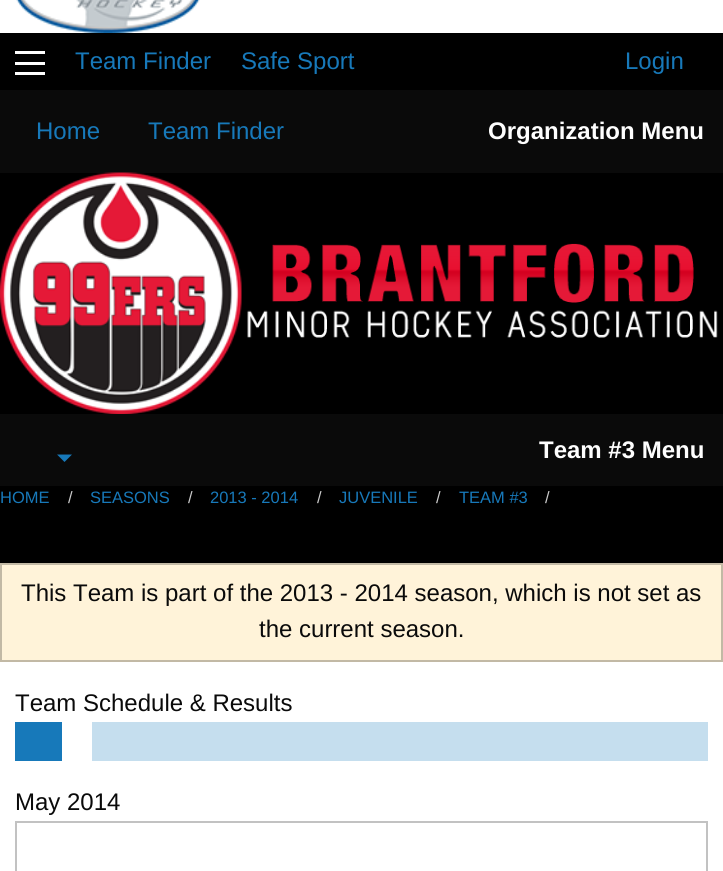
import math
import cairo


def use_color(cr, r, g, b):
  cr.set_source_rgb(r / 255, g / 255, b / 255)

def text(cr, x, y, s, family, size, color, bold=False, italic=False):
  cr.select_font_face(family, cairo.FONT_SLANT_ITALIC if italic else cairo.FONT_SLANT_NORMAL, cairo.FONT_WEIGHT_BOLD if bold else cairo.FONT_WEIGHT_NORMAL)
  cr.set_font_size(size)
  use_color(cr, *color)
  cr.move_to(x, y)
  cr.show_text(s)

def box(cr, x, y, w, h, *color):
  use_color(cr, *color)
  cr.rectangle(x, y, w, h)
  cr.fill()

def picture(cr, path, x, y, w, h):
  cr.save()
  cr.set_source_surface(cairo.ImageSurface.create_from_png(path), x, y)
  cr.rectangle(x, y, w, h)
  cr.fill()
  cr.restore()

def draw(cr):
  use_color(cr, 255, 255, 255)
  cr.paint()
  picture(cr, "img_01.png", 16, 0, 184, 33)
  box(cr, 0, 33, 723, 530, 0, 0, 0)
  box(cr, 15, 72, 30, 3, 254, 254, 254)
  box(cr, 15, 62, 30, 3, 254, 254, 254)
  box(cr, 15, 51, 30, 3, 254, 254, 254)
  box(cr, 0, 90, 723, 83, 10, 10, 10)
  picture(cr, "img_02.png", 0, 172, 242, 242)
  picture(cr, "img_03.png", 247, 243, 471, 95)
  box(cr, 0, 414, 723, 72, 10, 10, 10)
  use_color(cr, 23, 121, 186)
  cr.new_path()
  cr.move_to(57, 454.5)
  cr.line_to(72, 454.5)
  cr.line_to(64.5, 462)
  cr.close_path()
  cr.fill()
  use_color(cr, 255, 243, 217)
  cr.rectangle(1, 564, 721, 97)
  cr.fill_preserve()
  use_color(cr, 194, 185, 165)
  cr.stroke()
  box(cr, 15, 722, 47, 39, 23, 121, 186)
  box(cr, 92, 722, 616, 39, 197, 222, 238)
  cr.rectangle(16, 822, 691, 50)
  use_color(cr, 194, 194, 194)
  cr.stroke()
  text(cr, 75, 69, "Team Finder", "Liberation Sans", 24, (23, 121, 186))
  text(cr, 241, 69, "Safe Sport", "Liberation Sans", 24, (23, 121, 186))
  text(cr, 625, 69, "Login", "Liberation Sans", 24, (23, 121, 186))
  text(cr, 36, 139, "Home", "Liberation Sans", 24, (23, 121, 186))
  text(cr, 148, 139, "Team Finder", "Liberation Sans", 24, (23, 121, 186))
  text(cr, 488, 139, "Organization Menu", "Liberation Sans", 24, (254, 254, 254), bold=True)
  text(cr, 539, 458, "Team #3 Menu", "Liberation Sans", 24, (254, 254, 254), bold=True)
  text(cr, 0, 503, "HOME", "Liberation Sans", 16.5, (23, 121, 186))
  text(cr, 68, 503, "/", "Liberation Sans", 16.5, (202, 202, 202))
  text(cr, 90, 503, "SEASONS", "Liberation Sans", 16.5, (23, 121, 186))
  text(cr, 188, 503, "/", "Liberation Sans", 16.5, (202, 202, 202))
  text(cr, 210, 503, "2013 - 2014", "Liberation Sans", 16.5, (23, 121, 186))
  text(cr, 317, 503, "/", "Liberation Sans", 16.5, (202, 202, 202))
  text(cr, 339, 503, "JUVENILE", "Liberation Sans", 16.5, (23, 121, 186))
  text(cr, 436, 503, "/", "Liberation Sans", 16.5, (202, 202, 202))
  text(cr, 459, 503, "TEAM #3", "Liberation Sans", 16.5, (23, 121, 186))
  text(cr, 545, 503, "/", "Liberation Sans", 16.5, (202, 202, 202))
  text(cr, 21, 601, "This Team is part of the 2013 - 2014 season, which is not set as", "Liberation Sans", 24, (10, 10, 10))
  text(cr, 259, 637, "the current season.", "Liberation Sans", 24, (10, 10, 10))
  text(cr, 15, 711, "Team Schedule & Results", "Liberation Sans", 24, (10, 10, 10))
  text(cr, 15, 810, "May 2014", "Liberation Sans", 24, (10, 10, 10))


surface = cairo.ImageSurface(cairo.FORMAT_RGB24, 723, 871)
cr = cairo.Context(surface)
options = cairo.FontOptions()
options.set_hint_metrics(cairo.HINT_METRICS_OFF)
options.set_hint_style(cairo.HINT_STYLE_NONE)
cr.set_font_options(options)
cr.set_miter_limit(4)
draw(cr)
surface.write_to_png("out.png")
